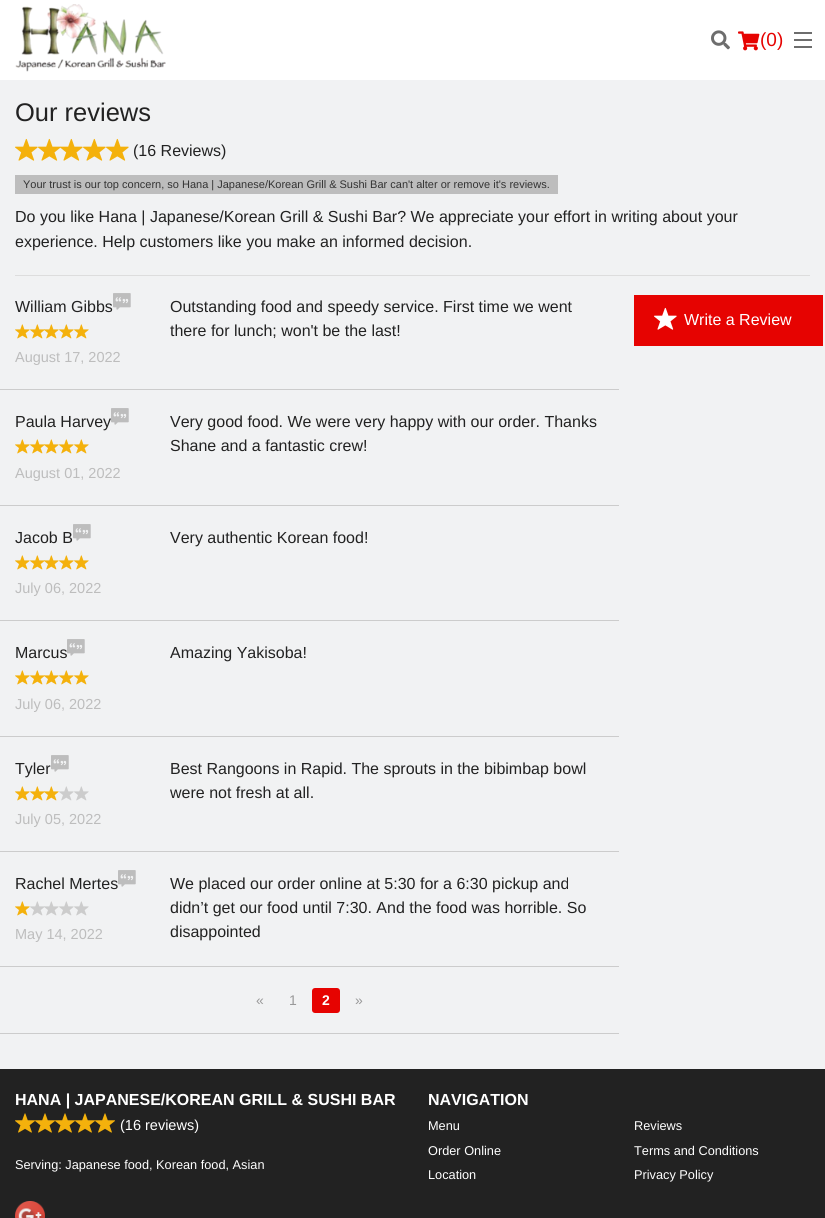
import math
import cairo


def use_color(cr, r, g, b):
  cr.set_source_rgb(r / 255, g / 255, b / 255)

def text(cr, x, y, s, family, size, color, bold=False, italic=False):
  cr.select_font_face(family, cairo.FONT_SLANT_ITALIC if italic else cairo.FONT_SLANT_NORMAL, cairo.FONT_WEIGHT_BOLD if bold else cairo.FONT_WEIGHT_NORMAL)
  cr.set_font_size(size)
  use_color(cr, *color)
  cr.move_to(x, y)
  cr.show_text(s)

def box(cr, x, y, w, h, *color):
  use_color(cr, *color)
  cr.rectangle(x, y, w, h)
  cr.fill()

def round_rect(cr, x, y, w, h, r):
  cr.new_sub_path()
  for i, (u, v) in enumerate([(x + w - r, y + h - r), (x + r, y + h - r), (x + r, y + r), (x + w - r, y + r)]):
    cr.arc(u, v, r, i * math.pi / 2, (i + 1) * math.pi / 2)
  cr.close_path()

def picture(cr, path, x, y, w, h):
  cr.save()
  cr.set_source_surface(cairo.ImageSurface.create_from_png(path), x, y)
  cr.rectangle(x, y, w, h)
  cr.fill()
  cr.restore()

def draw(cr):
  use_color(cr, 241, 242, 243)
  cr.paint()
  box(cr, 0, 0, 825, 80, 255, 255, 255)
  picture(cr, "img_01.png", 15, 4, 151, 68)
  picture(cr, "img_02.png", 711, 30, 19, 20)
  picture(cr, "img_03.png", 738, 31, 22, 20)
  box(cr, 794, 46, 18, 2, 109, 109, 109)
  box(cr, 794, 39, 18, 2, 109, 109, 109)
  box(cr, 794, 32, 18, 2, 109, 109, 109)
  picture(cr, "img_04.png", 15, 138, 23, 23)
  picture(cr, "img_04.png", 38, 138, 23, 23)
  picture(cr, "img_05.png", 60, 138, 23, 23)
  picture(cr, "img_04.png", 83, 138, 23, 23)
  picture(cr, "img_04.png", 106, 138, 23, 23)
  box(cr, 15, 175, 543, 19, 189, 189, 189)
  box(cr, 15, 275, 795, 1, 221, 221, 221)
  box(cr, 0, 389, 619, 1, 204, 204, 204)
  picture(cr, "img_06.png", 113, 293, 18, 17)
  picture(cr, "img_07.png", 15, 324, 15, 15)
  picture(cr, "img_07.png", 30, 324, 15, 15)
  picture(cr, "img_08.png", 44, 324, 15, 15)
  picture(cr, "img_07.png", 59, 324, 15, 15)
  picture(cr, "img_07.png", 74, 324, 15, 15)
  box(cr, 0, 505, 619, 1, 204, 204, 204)
  picture(cr, "img_06.png", 111, 408, 18, 17)
  picture(cr, "img_07.png", 15, 439, 15, 15)
  picture(cr, "img_07.png", 30, 439, 15, 15)
  picture(cr, "img_08.png", 44, 439, 15, 15)
  picture(cr, "img_07.png", 59, 439, 15, 15)
  picture(cr, "img_07.png", 74, 439, 15, 15)
  box(cr, 0, 620, 619, 1, 204, 204, 204)
  picture(cr, "img_06.png", 73, 524, 18, 17)
  picture(cr, "img_07.png", 15, 555, 15, 15)
  picture(cr, "img_07.png", 30, 555, 15, 15)
  picture(cr, "img_08.png", 44, 555, 15, 15)
  picture(cr, "img_07.png", 59, 555, 15, 15)
  picture(cr, "img_07.png", 74, 555, 15, 15)
  box(cr, 0, 736, 619, 1, 204, 204, 204)
  picture(cr, "img_06.png", 67, 639, 18, 17)
  picture(cr, "img_07.png", 15, 670, 15, 15)
  picture(cr, "img_07.png", 30, 670, 15, 15)
  picture(cr, "img_08.png", 44, 670, 15, 15)
  picture(cr, "img_07.png", 59, 670, 15, 15)
  picture(cr, "img_07.png", 74, 670, 15, 15)
  box(cr, 0, 851, 619, 1, 204, 204, 204)
  picture(cr, "img_06.png", 51, 755, 18, 17)
  picture(cr, "img_07.png", 15, 786, 15, 15)
  picture(cr, "img_07.png", 30, 786, 15, 15)
  picture(cr, "img_08.png", 44, 786, 15, 15)
  picture(cr, "img_09.png", 59, 786, 15, 15)
  picture(cr, "img_09.png", 74, 786, 15, 15)
  box(cr, 0, 966, 619, 1, 204, 204, 204)
  picture(cr, "img_06.png", 118, 870, 18, 17)
  picture(cr, "img_07.png", 15, 901, 15, 15)
  picture(cr, "img_09.png", 30, 901, 15, 15)
  picture(cr, "img_10.png", 44, 901, 15, 15)
  picture(cr, "img_09.png", 59, 901, 15, 15)
  picture(cr, "img_09.png", 74, 901, 15, 15)
  box(cr, 0, 1033, 619, 1, 204, 204, 204)
  use_color(cr, 230, 3, 1)
  round_rect(cr, 312, 988, 28, 25, 3)
  cr.fill()
  box(cr, 634, 295, 189, 51, 230, 3, 1)
  picture(cr, "img_11.png", 654, 307, 23, 23)
  box(cr, 0, 1069, 825, 149, 34, 34, 34)
  picture(cr, "img_12.png", 15, 1113, 20, 20)
  picture(cr, "img_12.png", 35, 1113, 20, 20)
  picture(cr, "img_12.png", 55, 1113, 20, 20)
  picture(cr, "img_12.png", 75, 1113, 20, 20)
  picture(cr, "img_12.png", 95, 1113, 20, 20)
  picture(cr, "img_13.png", 15, 1201, 30, 17)
  text(cr, 760, 46, "(0)", "Liberation Sans", 19, (230, 3, 1))
  text(cr, 15, 121, "Our reviews", "Liberation Sans", 25.5, (34, 34, 34))
  text(cr, 133, 156, "(16 Reviews)", "Liberation Sans", 16, (34, 34, 34))
  text(cr, 23, 188, "Your trust is our top concern, so Hana | Japanese/Korean Grill & Sushi Bar can't alter or remove it's reviews.", "Liberation Sans", 11, (51, 51, 51))
  text(cr, 15, 222, "Do you like Hana | Japanese/Korean Grill & Sushi Bar? We appreciate your effort in writing about your", "Liberation Sans", 16, (34, 34, 34))
  text(cr, 15, 247, "experience. Help customers like you make an informed decision.", "Liberation Sans", 16, (34, 34, 34))
  text(cr, 15, 312, "William Gibbs", "Liberation Sans", 16, (34, 34, 34))
  text(cr, 15, 362, "August 17, 2022", "Liberation Sans", 14.5, (189, 189, 189))
  text(cr, 170, 312, "Outstanding food and speedy service. First time we went", "Liberation Sans", 16, (34, 34, 34))
  text(cr, 170, 336, "there for lunch; won't be the last!", "Liberation Sans", 16, (34, 34, 34))
  text(cr, 15, 427, "Paula Harvey", "Liberation Sans", 16, (34, 34, 34))
  text(cr, 15, 478, "August 01, 2022", "Liberation Sans", 14.5, (189, 189, 189))
  text(cr, 170, 427, "Very good food. We were very happy with our order. Thanks", "Liberation Sans", 16, (34, 34, 34))
  text(cr, 170, 451, "Shane and a fantastic crew!", "Liberation Sans", 16, (34, 34, 34))
  text(cr, 15, 543, "Jacob B", "Liberation Sans", 16, (34, 34, 34))
  text(cr, 15, 593, "July 06, 2022", "Liberation Sans", 14.5, (189, 189, 189))
  text(cr, 170, 543, "Very authentic Korean food!", "Liberation Sans", 16, (34, 34, 34))
  text(cr, 15, 658, "Marcus", "Liberation Sans", 16, (34, 34, 34))
  text(cr, 15, 709, "July 06, 2022", "Liberation Sans", 14.5, (189, 189, 189))
  text(cr, 170, 658, "Amazing Yakisoba!", "Liberation Sans", 16, (34, 34, 34))
  text(cr, 15, 774, "Tyler", "Liberation Sans", 16, (34, 34, 34))
  text(cr, 15, 824, "July 05, 2022", "Liberation Sans", 14.5, (189, 189, 189))
  text(cr, 170, 774, "Best Rangoons in Rapid. The sprouts in the bibimbap bowl", "Liberation Sans", 16, (34, 34, 34))
  text(cr, 170, 798, "were not fresh at all.", "Liberation Sans", 16, (34, 34, 34))
  text(cr, 15, 889, "Rachel Mertes", "Liberation Sans", 16, (34, 34, 34))
  text(cr, 15, 939, "May 14, 2022", "Liberation Sans", 14.5, (189, 189, 189))
  text(cr, 170, 889, "We placed our order online at 5:30 for a 6:30 pickup and", "Liberation Sans", 16, (34, 34, 34))
  text(cr, 170, 913, "didn’t get our food until 7:30. And the food was horrible. So", "Liberation Sans", 16, (34, 34, 34))
  text(cr, 170, 937, "disappointed", "Liberation Sans", 16, (34, 34, 34))
  text(cr, 256, 1005, "«", "Liberation Sans", 14, (153, 153, 153))
  text(cr, 289, 1005, "1", "Liberation Sans", 14, (153, 153, 153))
  text(cr, 322, 1005, "2", "Liberation Sans", 14, (255, 255, 255), bold=True)
  text(cr, 355, 1005, "»", "Liberation Sans", 14, (153, 153, 153))
  text(cr, 684, 325, "Write a Review", "Liberation Sans", 16, (255, 255, 255))
  text(cr, 15, 1105, "HANA | JAPANESE/KOREAN GRILL & SUSHI BAR", "Liberation Sans", 16, (255, 255, 255), bold=True)
  text(cr, 120, 1130, "(16 reviews)", "Liberation Sans", 14.5, (255, 255, 255))
  text(cr, 15, 1169, "Serving: Japanese food, Korean food, Asian", "Liberation Sans", 12.75, (255, 255, 255))
  text(cr, 428, 1105, "NAVIGATION", "Liberation Sans", 16, (255, 255, 255), bold=True)
  text(cr, 428, 1130, "Menu", "Liberation Sans", 12.75, (255, 255, 255))
  text(cr, 428, 1155, "Order Online", "Liberation Sans", 12.75, (255, 255, 255))
  text(cr, 428, 1179, "Location", "Liberation Sans", 12.75, (255, 255, 255))
  text(cr, 634, 1130, "Reviews", "Liberation Sans", 12.75, (255, 255, 255))
  text(cr, 634, 1155, "Terms and Conditions", "Liberation Sans", 12.75, (255, 255, 255))
  text(cr, 634, 1179, "Privacy Policy", "Liberation Sans", 12.75, (255, 255, 255))


surface = cairo.ImageSurface(cairo.FORMAT_RGB24, 825, 1218)
cr = cairo.Context(surface)
options = cairo.FontOptions()
options.set_hint_metrics(cairo.HINT_METRICS_OFF)
options.set_hint_style(cairo.HINT_STYLE_NONE)
cr.set_font_options(options)
cr.set_miter_limit(4)
draw(cr)
surface.write_to_png("out.png")
